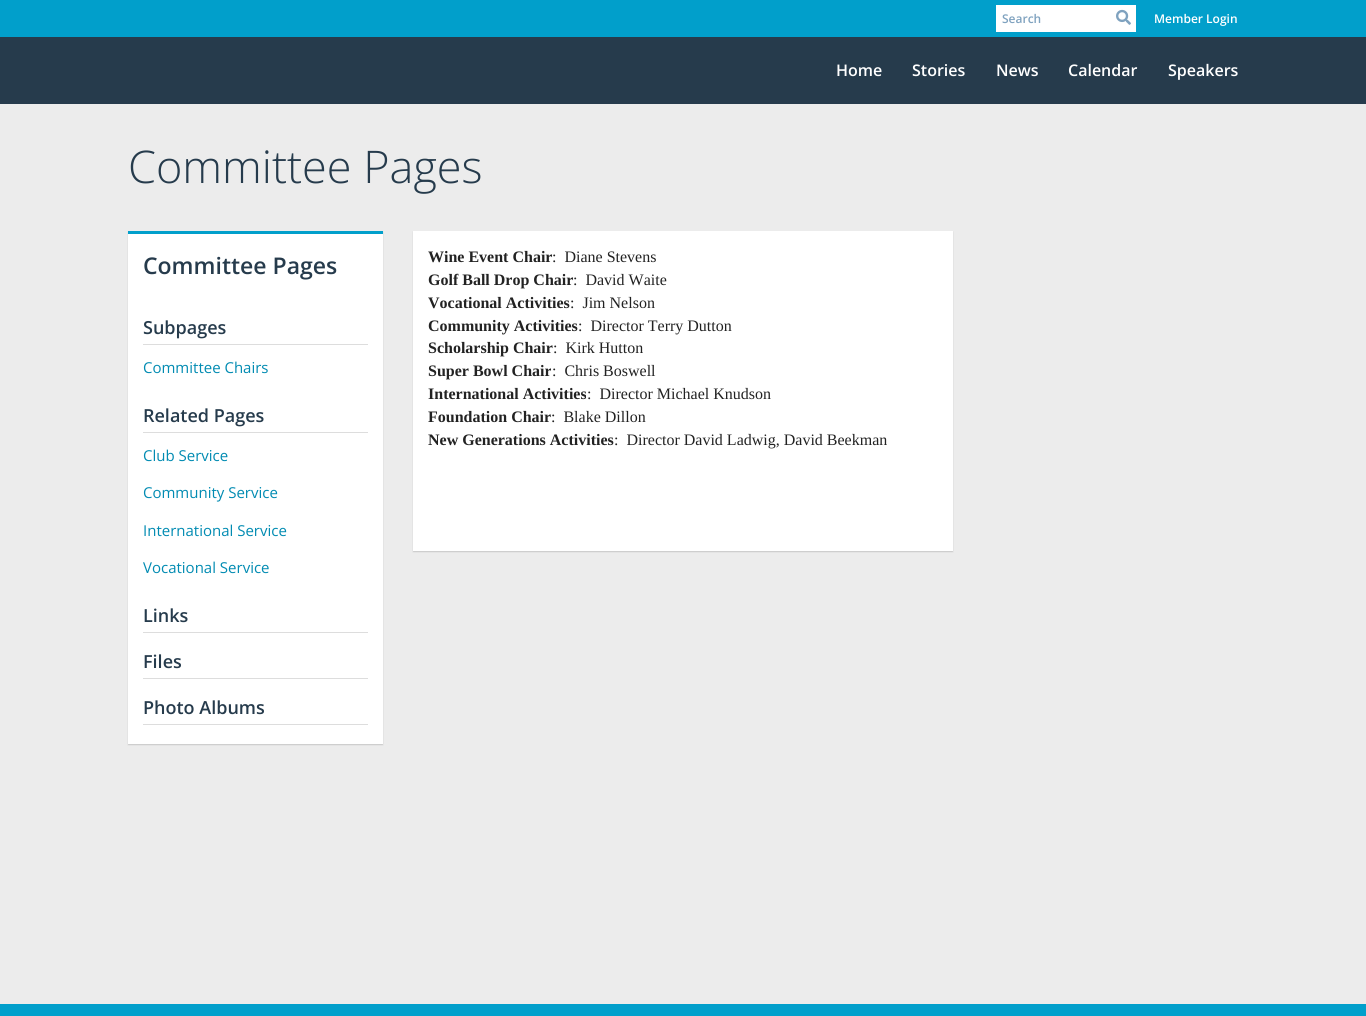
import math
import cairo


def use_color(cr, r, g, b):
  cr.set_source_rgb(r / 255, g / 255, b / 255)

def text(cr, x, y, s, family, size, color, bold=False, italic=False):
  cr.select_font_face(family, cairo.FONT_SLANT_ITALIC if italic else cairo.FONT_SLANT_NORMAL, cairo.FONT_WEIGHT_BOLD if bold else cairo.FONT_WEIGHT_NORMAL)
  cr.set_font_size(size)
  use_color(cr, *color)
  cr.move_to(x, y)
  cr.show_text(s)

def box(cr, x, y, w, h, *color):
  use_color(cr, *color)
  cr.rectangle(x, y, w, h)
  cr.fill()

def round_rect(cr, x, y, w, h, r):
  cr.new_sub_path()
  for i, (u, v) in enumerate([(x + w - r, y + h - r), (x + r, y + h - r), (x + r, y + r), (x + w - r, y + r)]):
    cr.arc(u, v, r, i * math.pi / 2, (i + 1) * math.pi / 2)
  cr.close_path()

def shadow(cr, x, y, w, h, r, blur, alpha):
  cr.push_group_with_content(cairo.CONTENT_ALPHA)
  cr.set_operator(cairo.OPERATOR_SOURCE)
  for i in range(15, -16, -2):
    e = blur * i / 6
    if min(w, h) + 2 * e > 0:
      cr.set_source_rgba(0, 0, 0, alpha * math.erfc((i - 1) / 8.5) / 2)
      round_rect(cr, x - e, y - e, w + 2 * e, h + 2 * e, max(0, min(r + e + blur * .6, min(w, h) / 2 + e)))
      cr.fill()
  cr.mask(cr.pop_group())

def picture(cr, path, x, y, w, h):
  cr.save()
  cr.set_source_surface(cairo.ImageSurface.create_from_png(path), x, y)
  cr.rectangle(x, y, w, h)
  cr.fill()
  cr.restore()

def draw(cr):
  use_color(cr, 236, 236, 236)
  cr.paint()
  box(cr, 0, 0, 1366, 37, 1, 159, 203)
  box(cr, 996, 5, 140, 27, 255, 255, 255)
  picture(cr, "img_01.png", 1116, 9, 15, 16)
  box(cr, 0, 37, 1366, 67, 38, 59, 76)
  use_color(cr, 0, 0, 0)
  shadow(cr, 128, 232, 255, 513, 0, 0.5, 0.15)
  box(cr, 128, 234, 255, 510, 255, 255, 255)
  box(cr, 128, 231, 255, 3, 1, 159, 203)
  box(cr, 143, 344, 225, 1, 221, 221, 221)
  box(cr, 143, 432, 225, 1, 221, 221, 221)
  box(cr, 143, 632, 225, 1, 221, 221, 221)
  box(cr, 143, 678, 225, 1, 221, 221, 221)
  box(cr, 143, 724, 225, 1, 221, 221, 221)
  use_color(cr, 0, 0, 0)
  shadow(cr, 413, 232, 540, 320, 0, 0.5, 0.15)
  box(cr, 413, 231, 540, 320, 255, 255, 255)
  box(cr, 0, 1004, 1366, 12, 1, 159, 203)
  text(cr, 1002, 23, "Search", "Open Sans SemiBold", 12, (127, 162, 191))
  text(cr, 1154, 23, "Member Login", "Open Sans SemiBold", 12, (255, 255, 255))
  text(cr, 836, 76, "Home", "Open Sans SemiBold", 16, (255, 255, 255))
  text(cr, 912, 76, "Stories", "Open Sans SemiBold", 16, (255, 255, 255))
  text(cr, 996, 76, "News", "Open Sans SemiBold", 16, (255, 255, 255))
  text(cr, 1068, 76, "Calendar", "Open Sans SemiBold", 16, (255, 255, 255))
  text(cr, 1168, 76, "Speakers", "Open Sans SemiBold", 16, (255, 255, 255))
  text(cr, 128, 183, "Committee Pages", "Open Sans Light", 45, (38, 59, 76))
  text(cr, 143, 274, "Committee Pages", "Open Sans SemiBold", 23, (38, 59, 76))
  text(cr, 143, 334, "Subpages", "Open Sans SemiBold", 18, (38, 59, 76))
  text(cr, 143, 373, "Committee Chairs", "Open Sans", 15, (1, 139, 178))
  text(cr, 143, 422, "Related Pages", "Open Sans SemiBold", 18, (38, 59, 76))
  text(cr, 143, 461, "Club Service", "Open Sans", 15, (1, 139, 178))
  text(cr, 143, 498, "Community Service", "Open Sans", 15, (1, 139, 178))
  text(cr, 143, 536, "International Service", "Open Sans", 15, (1, 139, 178))
  text(cr, 143, 573, "Vocational Service", "Open Sans", 15, (1, 139, 178))
  text(cr, 143, 622, "Links", "Open Sans SemiBold", 18, (38, 59, 76))
  text(cr, 143, 668, "Files", "Open Sans SemiBold", 18, (38, 59, 76))
  text(cr, 143, 714, "Photo Albums", "Open Sans SemiBold", 18, (38, 59, 76))
  text(cr, 428, 262, "Wine Event Chair", "Liberation Serif", 16, (34, 34, 34), bold=True)
  text(cr, 552, 262, ":  Diane Stevens", "Liberation Serif", 16, (34, 34, 34))
  text(cr, 428, 285, "Golf Ball Drop Chair", "Liberation Serif", 16, (34, 34, 34), bold=True)
  text(cr, 573, 285, ":  David Waite", "Liberation Serif", 16, (34, 34, 34))
  text(cr, 428, 308, "Vocational Activities", "Liberation Serif", 16, (34, 34, 34), bold=True)
  text(cr, 570, 308, ":  Jim Nelson", "Liberation Serif", 16, (34, 34, 34))
  text(cr, 428, 331, "Community Activities", "Liberation Serif", 16, (34, 34, 34), bold=True)
  text(cr, 578, 331, ":  Director Terry Dutton", "Liberation Serif", 16, (34, 34, 34))
  text(cr, 428, 353, "Scholarship Chair", "Liberation Serif", 16, (34, 34, 34), bold=True)
  text(cr, 553, 353, ":  Kirk Hutton", "Liberation Serif", 16, (34, 34, 34))
  text(cr, 428, 376, "Super Bowl Chair", "Liberation Serif", 16, (34, 34, 34), bold=True)
  text(cr, 552, 376, ":  Chris Boswell", "Liberation Serif", 16, (34, 34, 34))
  text(cr, 428, 399, "International Activities", "Liberation Serif", 16, (34, 34, 34), bold=True)
  text(cr, 587, 399, ":  Director Michael Knudson", "Liberation Serif", 16, (34, 34, 34))
  text(cr, 428, 422, "Foundation Chair", "Liberation Serif", 16, (34, 34, 34), bold=True)
  text(cr, 551, 422, ":  Blake Dillon", "Liberation Serif", 16, (34, 34, 34))
  text(cr, 428, 445, "New Generations Activities", "Liberation Serif", 16, (34, 34, 34), bold=True)
  text(cr, 614, 445, ":  Director David Ladwig, David Beekman", "Liberation Serif", 16, (34, 34, 34))


surface = cairo.ImageSurface(cairo.FORMAT_RGB24, 1366, 1016)
cr = cairo.Context(surface)
options = cairo.FontOptions()
options.set_hint_metrics(cairo.HINT_METRICS_OFF)
options.set_hint_style(cairo.HINT_STYLE_NONE)
cr.set_font_options(options)
cr.set_miter_limit(4)
draw(cr)
surface.write_to_png("out.png")
